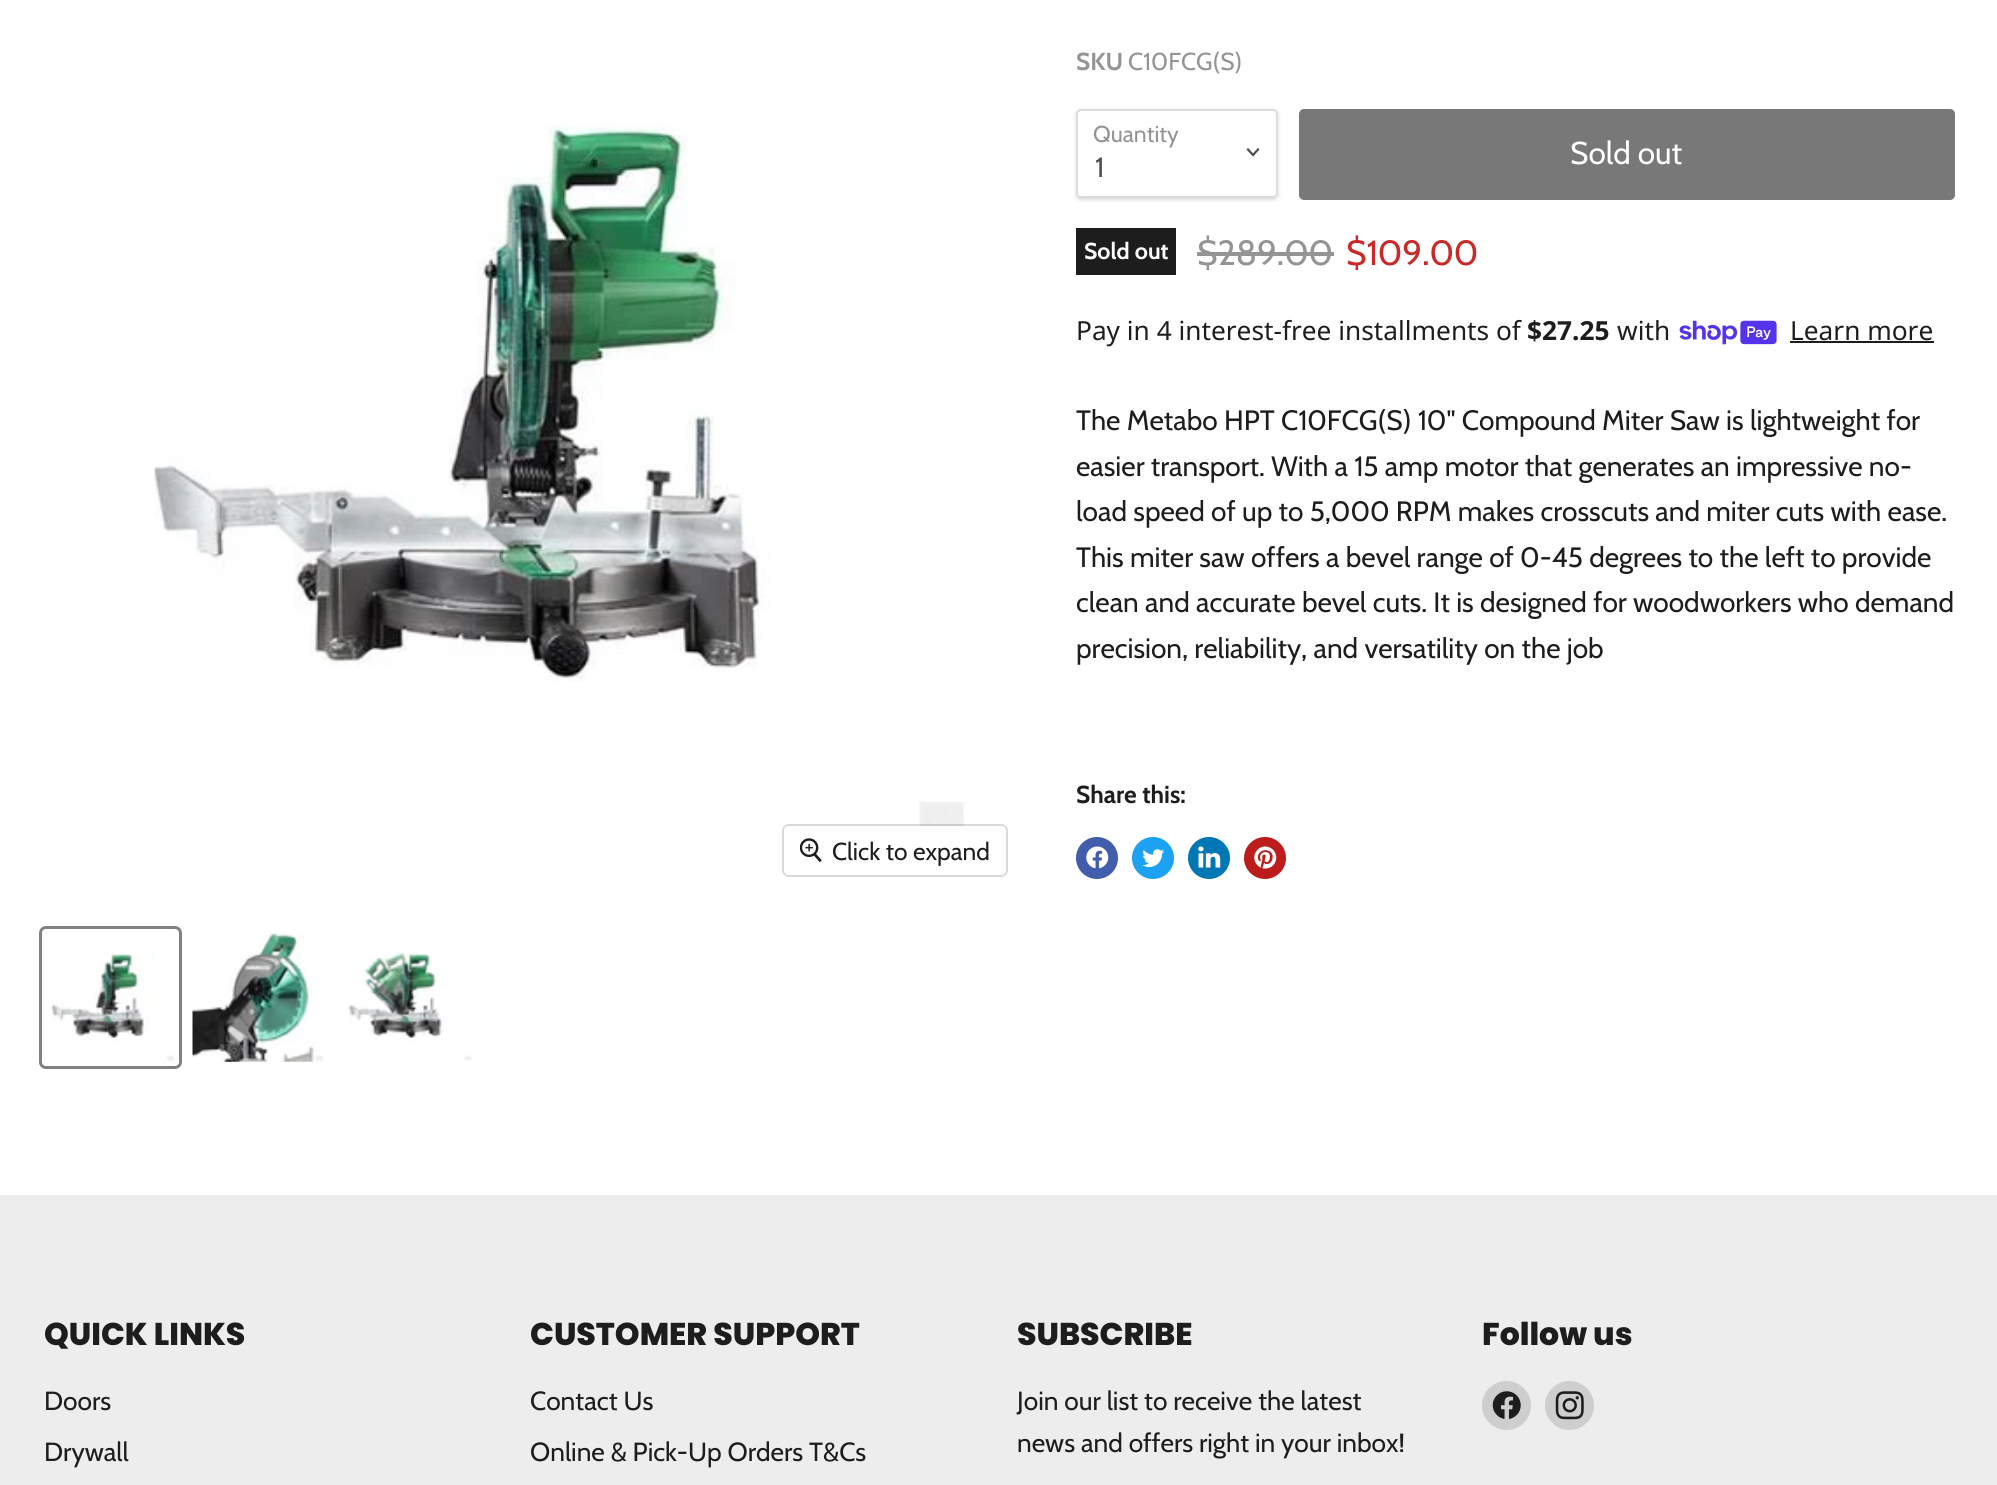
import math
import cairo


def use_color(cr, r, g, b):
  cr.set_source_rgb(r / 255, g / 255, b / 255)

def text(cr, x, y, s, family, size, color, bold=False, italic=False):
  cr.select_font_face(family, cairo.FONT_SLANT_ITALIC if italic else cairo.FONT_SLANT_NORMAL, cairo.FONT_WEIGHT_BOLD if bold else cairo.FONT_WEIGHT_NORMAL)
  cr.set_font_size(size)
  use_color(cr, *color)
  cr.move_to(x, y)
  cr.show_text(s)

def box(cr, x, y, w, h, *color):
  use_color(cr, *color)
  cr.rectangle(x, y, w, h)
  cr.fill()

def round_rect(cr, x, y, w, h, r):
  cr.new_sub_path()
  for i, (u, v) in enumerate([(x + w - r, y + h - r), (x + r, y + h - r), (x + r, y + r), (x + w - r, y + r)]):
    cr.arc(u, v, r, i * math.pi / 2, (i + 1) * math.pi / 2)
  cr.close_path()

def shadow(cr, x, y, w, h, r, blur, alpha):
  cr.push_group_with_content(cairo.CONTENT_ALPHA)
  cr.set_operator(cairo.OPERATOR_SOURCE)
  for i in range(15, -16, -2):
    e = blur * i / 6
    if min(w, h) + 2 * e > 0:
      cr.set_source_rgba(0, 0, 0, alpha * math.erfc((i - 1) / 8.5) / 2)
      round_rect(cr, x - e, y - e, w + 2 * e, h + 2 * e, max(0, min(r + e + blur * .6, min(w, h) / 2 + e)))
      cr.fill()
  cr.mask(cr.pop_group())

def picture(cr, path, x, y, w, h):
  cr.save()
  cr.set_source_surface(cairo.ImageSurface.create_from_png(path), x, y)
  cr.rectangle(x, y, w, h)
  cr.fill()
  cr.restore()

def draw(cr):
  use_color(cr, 255, 255, 255)
  cr.paint()
  use_color(cr, 0, 0, 0)
  shadow(cr, 1076, 110, 202, 90, 5, 2, 0.15)
  use_color(cr, 255, 255, 255)
  round_rect(cr, 1077, 110, 200, 87, 4)
  cr.fill_preserve()
  use_color(cr, 221, 221, 221)
  cr.stroke()
  cr.new_path()
  cr.move_to(1253, 155)
  cr.line_to(1258, 149.5)
  cr.move_to(1253, 155)
  cr.line_to(1248, 149.5)
  use_color(cr, 77, 77, 77)
  cr.set_line_width(2.2)
  cr.set_line_cap(cairo.LINE_CAP_SQUARE)
  cr.stroke()
  use_color(cr, 120, 120, 120)
  round_rect(cr, 1300, 110, 654, 89, 4)
  cr.fill_preserve()
  cr.set_line_width(2)
  cr.set_line_cap(cairo.LINE_CAP_BUTT)
  cr.stroke()
  box(cr, 1076, 228, 100, 47, 29, 29, 29)
  box(cr, 1197, 252, 137, 4, 148, 148, 148)
  picture(cr, "img_01.png", 1679, 320, 98, 25)
  box(cr, 1790, 341, 144, 2, 29, 29, 29)
  use_color(cr, 66, 93, 171)
  cr.arc(1097, 858, 21, 0, 2 * math.pi)
  cr.fill()
  picture(cr, "img_02.png", 1086, 846, 23, 23)
  use_color(cr, 29, 161, 242)
  cr.arc(1153, 858, 21, 0, 2 * math.pi)
  cr.fill()
  picture(cr, "img_03.png", 1142, 849, 23, 18)
  use_color(cr, 0, 119, 181)
  cr.arc(1209, 858, 21, 0, 2 * math.pi)
  cr.fill()
  picture(cr, "img_04.png", 1198, 846, 23, 22)
  use_color(cr, 189, 28, 28)
  cr.arc(1265, 858, 21, 0, 2 * math.pi)
  cr.fill()
  picture(cr, "img_05.png", 1254, 846, 23, 23)
  picture(cr, "img_06.png", 154, 124, 811, 711)
  round_rect(cr, 783, 825, 224, 51, 6)
  cr.set_source_rgba(0, 0, 0, 0.15)
  cr.stroke()
  cr.set_source_rgba(1, 1, 1, 0.9)
  round_rect(cr, 784, 826, 222, 49, 5)
  cr.fill()
  picture(cr, "img_07.png", 800, 838, 22, 25)
  round_rect(cr, 40.5, 927.5, 140, 140, 5.5)
  use_color(cr, 129, 129, 129)
  cr.set_line_width(3)
  cr.stroke()
  picture(cr, "img_08.png", 50, 952, 125, 110)
  picture(cr, "img_09.png", 192, 931, 131, 131)
  picture(cr, "img_10.png", 348, 952, 124, 109)
  box(cr, 0, 1195, 1997, 290, 237, 237, 237)
  use_color(cr, 206, 206, 206)
  cr.arc(1506.5, 1405.5, 24.5, 0, 2 * math.pi)
  cr.fill()
  picture(cr, "img_11.png", 1492, 1391, 29, 28)
  cr.arc(1569.5, 1405.5, 24.5, 0, 2 * math.pi)
  cr.fill()
  picture(cr, "img_12.png", 1555, 1391, 29, 29)
  text(cr, 1076, 70, "SKU", "Cabin", 24.5, (148, 148, 148), bold=True)
  text(cr, 1128, 70, "C10FCG(S)", "Cabin", 24.5, (148, 148, 148))
  text(cr, 1093, 142, "Quantity", "Cabin", 23, (148, 148, 148))
  text(cr, 1095, 177, "1", "Cabin", 28, (77, 77, 77))
  text(cr, 1570, 164, "Sold out", "Cabin", 31.5, (255, 255, 255))
  text(cr, 1084, 259, "Sold out", "Cabin", 23, (255, 255, 255), bold=True)
  text(cr, 1197, 265, "$289.00", "Cabin", 35, (148, 148, 148))
  text(cr, 1346, 265, "$109.00", "Cabin", 35, (201, 42, 40))
  text(cr, 1076, 340, "Pay in 4 interest-free installments of", "Noto Sans", 26.25, (29, 29, 29))
  text(cr, 1527, 340, "$27.25", "Noto Sans", 26.25, (29, 29, 29), bold=True)
  text(cr, 1617, 340, "with", "Noto Sans", 26.25, (29, 29, 29))
  text(cr, 1790, 340, "Learn more", "Noto Sans", 26.25, (29, 29, 29))
  text(cr, 1076, 430, "The Metabo HPT C10FCG(S) 10\" Compound Miter Saw is lightweight for", "Cabin", 28, (29, 29, 29))
  text(cr, 1076, 476, "easier transport. With a 15 amp motor that generates an impressive no-", "Cabin", 28, (29, 29, 29))
  text(cr, 1076, 521, "load speed of up to 5,000 RPM makes crosscuts and miter cuts with ease.", "Cabin", 28, (29, 29, 29))
  text(cr, 1076, 567, "This miter saw offers a bevel range of 0-45 degrees to the left to provide", "Cabin", 28, (29, 29, 29))
  text(cr, 1076, 612, "clean and accurate bevel cuts. It is designed for woodworkers who demand", "Cabin", 28, (29, 29, 29))
  text(cr, 1076, 658, "precision, reliability, and versatility on the job", "Cabin", 28, (29, 29, 29))
  text(cr, 1076, 803, "Share this:", "Cabin", 24.5, (29, 29, 29), bold=True)
  text(cr, 832, 860, "Click to expand", "Cabin", 24.5, (29, 29, 29))
  text(cr, 44, 1345, "QUICK LINKS", "Poppins ExtraBold", 31.5, (29, 29, 29))
  text(cr, 44, 1410, "Doors", "Cabin", 26.25, (29, 29, 29))
  text(cr, 44, 1461, "Drywall", "Cabin", 26.25, (29, 29, 29))
  text(cr, 530, 1345, "CUSTOMER SUPPORT", "Poppins ExtraBold", 31.5, (29, 29, 29))
  text(cr, 530, 1410, "Contact Us", "Cabin", 26.25, (29, 29, 29))
  text(cr, 530, 1461, "Online & Pick-Up Orders T&Cs", "Cabin", 26.25, (29, 29, 29))
  text(cr, 1017, 1345, "SUBSCRIBE", "Poppins ExtraBold", 31.5, (29, 29, 29))
  text(cr, 1017, 1410, "Join our list to receive the latest", "Cabin", 26.25, (29, 29, 29))
  text(cr, 1017, 1452, "news and offers right in your inbox!", "Cabin", 26.25, (29, 29, 29))
  text(cr, 1482, 1345, "Follow us", "Poppins ExtraBold", 31.5, (29, 29, 29))


surface = cairo.ImageSurface(cairo.FORMAT_RGB24, 1997, 1485)
cr = cairo.Context(surface)
options = cairo.FontOptions()
options.set_hint_metrics(cairo.HINT_METRICS_OFF)
options.set_hint_style(cairo.HINT_STYLE_NONE)
cr.set_font_options(options)
cr.set_miter_limit(4)
draw(cr)
surface.write_to_png("out.png")
